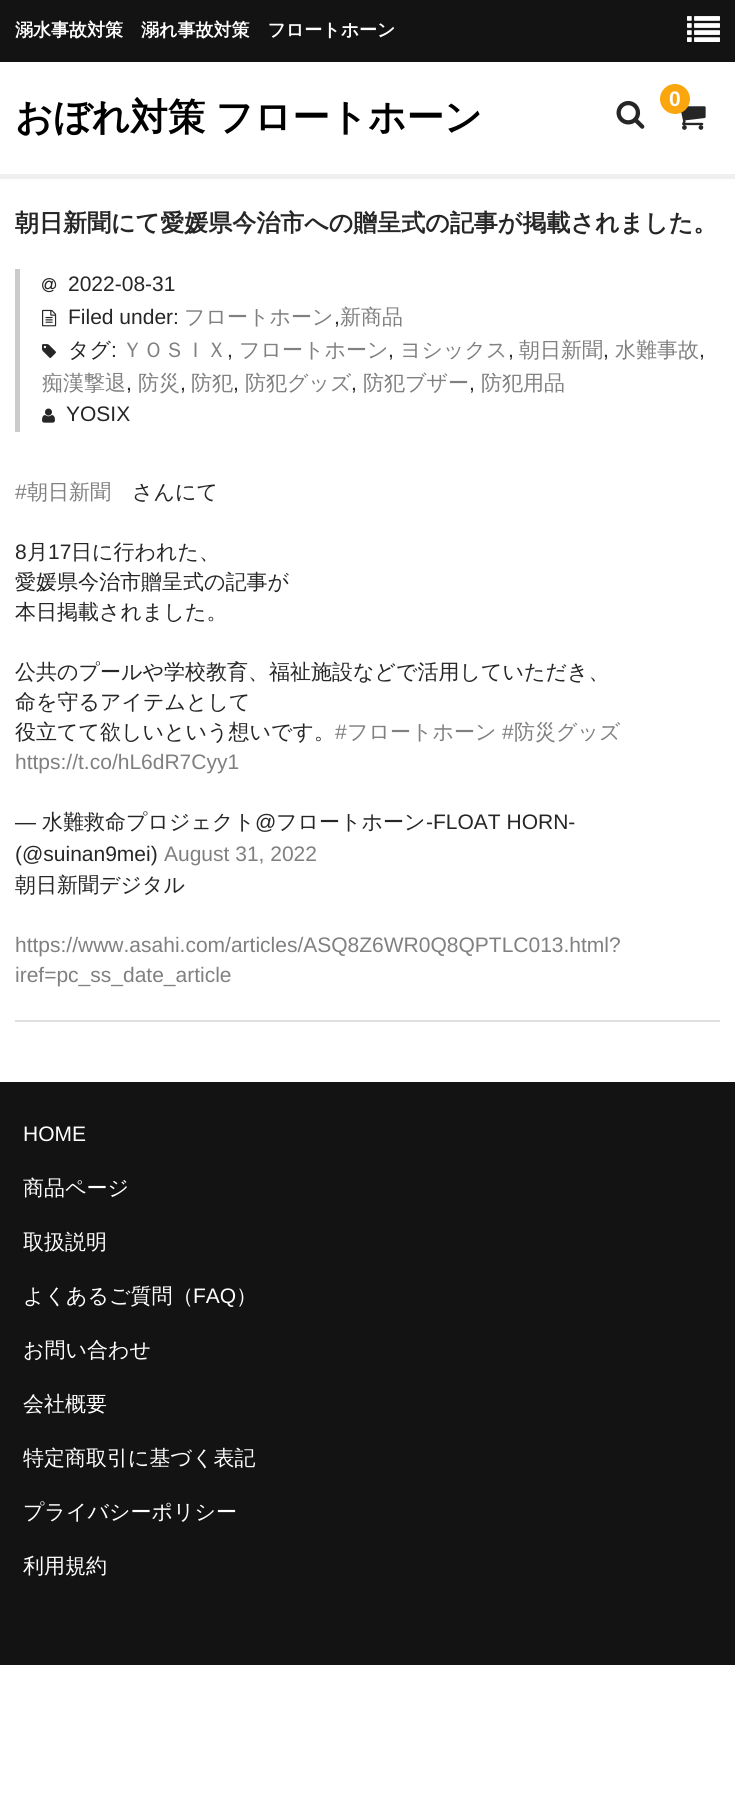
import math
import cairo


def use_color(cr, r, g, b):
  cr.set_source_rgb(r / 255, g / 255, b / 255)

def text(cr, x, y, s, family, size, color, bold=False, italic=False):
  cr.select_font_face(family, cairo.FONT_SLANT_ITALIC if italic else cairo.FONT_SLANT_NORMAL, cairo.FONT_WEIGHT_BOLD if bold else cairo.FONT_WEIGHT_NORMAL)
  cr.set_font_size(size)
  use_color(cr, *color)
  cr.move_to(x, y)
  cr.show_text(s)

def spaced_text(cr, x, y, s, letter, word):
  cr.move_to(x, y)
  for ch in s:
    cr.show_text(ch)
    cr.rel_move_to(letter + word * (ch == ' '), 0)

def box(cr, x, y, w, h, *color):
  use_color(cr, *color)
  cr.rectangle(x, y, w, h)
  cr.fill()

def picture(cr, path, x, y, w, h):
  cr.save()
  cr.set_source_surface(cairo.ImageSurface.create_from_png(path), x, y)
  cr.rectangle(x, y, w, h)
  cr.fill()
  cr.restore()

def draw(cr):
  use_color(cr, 255, 255, 255)
  cr.paint()
  box(cr, 0, 174, 735, 5, 239, 239, 239)
  box(cr, 0, 0, 735, 62, 19, 19, 19)
  picture(cr, "img_01.png", 616, 100, 29, 29)
  picture(cr, "img_02.png", 681, 106, 25, 24)
  use_color(cr, 251, 166, 13)
  cr.arc(675, 99, 15, 0, 2 * math.pi)
  cr.fill()
  picture(cr, "img_03.png", 687, 16, 33, 26)
  box(cr, 15, 269, 5, 163, 204, 202, 202)
  picture(cr, "img_04.png", 42, 278, 15, 15)
  picture(cr, "img_05.png", 42, 309, 15, 18)
  picture(cr, "img_06.png", 42, 344, 14, 14)
  picture(cr, "img_07.png", 42, 408, 13, 15)
  box(cr, 15, 1020, 705, 2, 224, 224, 224)
  box(cr, 0, 1082, 735, 583, 19, 19, 19)
  text(cr, 15, 36, "溺水事故対策　溺れ事故対策　フロートホーン", "WenQuanYi Zen Hei", 18, (255, 255, 255), bold=True)
  cr.set_font_size(37.5)
  use_color(cr, 0, 0, 0)
  spaced_text(cr, 15, 130, "おぼれ対策 フロートホーン", 0, -1)
  text(cr, 669, 106, "0", "Liberation Sans", 21, (255, 255, 255), bold=True)
  text(cr, 15, 231, "朝日新聞にて愛媛県今治市への贈呈式の記事が掲載されました。", "WenQuanYi Zen Hei", 24, (38, 38, 38), bold=True)
  text(cr, 68, 291, "2022-08-31", "Liberation Sans", 21, (38, 38, 38))
  text(cr, 68, 324, "Filed under:", "Liberation Sans", 21, (38, 38, 38))
  text(cr, 184, 324, "フロートホーン", "WenQuanYi Zen Hei Medium", 21, (128, 128, 128))
  text(cr, 334, 324, ",", "Liberation Sans", 21, (38, 38, 38))
  text(cr, 340, 324, "新商品", "WenQuanYi Zen Hei Medium", 21, (128, 128, 128))
  text(cr, 68, 357, "タグ", "WenQuanYi Zen Hei Medium", 21, (38, 38, 38))
  text(cr, 111, 357, ":", "Liberation Sans", 21, (38, 38, 38))
  text(cr, 122, 357, "ＹＯＳＩＸ", "WenQuanYi Zen Hei Medium", 21, (128, 128, 128))
  text(cr, 227, 357, ",", "Liberation Sans", 21, (38, 38, 38))
  text(cr, 239, 357, "フロートホーン", "WenQuanYi Zen Hei Medium", 21, (128, 128, 128))
  text(cr, 388, 357, ",", "Liberation Sans", 21, (38, 38, 38))
  text(cr, 400, 357, "ヨシックス", "WenQuanYi Zen Hei Medium", 21, (128, 128, 128))
  text(cr, 508, 357, ",", "Liberation Sans", 21, (38, 38, 38))
  text(cr, 519, 357, "朝日新聞", "WenQuanYi Zen Hei Medium", 21, (128, 128, 128))
  text(cr, 603, 357, ",", "Liberation Sans", 21, (38, 38, 38))
  text(cr, 615, 357, "水難事故", "WenQuanYi Zen Hei Medium", 21, (128, 128, 128))
  text(cr, 699, 357, ",", "Liberation Sans", 21, (38, 38, 38))
  text(cr, 42, 390, "痴漢撃退", "WenQuanYi Zen Hei Medium", 21, (128, 128, 128))
  text(cr, 126, 390, ",", "Liberation Sans", 21, (38, 38, 38))
  text(cr, 138, 390, "防災", "WenQuanYi Zen Hei Medium", 21, (128, 128, 128))
  text(cr, 180, 390, ",", "Liberation Sans", 21, (38, 38, 38))
  text(cr, 191, 390, "防犯", "WenQuanYi Zen Hei Medium", 21, (128, 128, 128))
  text(cr, 233, 390, ",", "Liberation Sans", 21, (38, 38, 38))
  text(cr, 245, 390, "防犯グッズ", "WenQuanYi Zen Hei Medium", 21, (128, 128, 128))
  text(cr, 351, 390, ",", "Liberation Sans", 21, (38, 38, 38))
  text(cr, 363, 390, "防犯ブザー", "WenQuanYi Zen Hei Medium", 21, (128, 128, 128))
  text(cr, 469, 390, ",", "Liberation Sans", 21, (38, 38, 38))
  text(cr, 481, 390, "防犯用品", "WenQuanYi Zen Hei Medium", 21, (128, 128, 128))
  text(cr, 66, 421, "YOSIX", "Liberation Sans", 21, (38, 38, 38))
  text(cr, 15, 499, "#", "Liberation Sans", 21, (128, 128, 128))
  text(cr, 27, 499, "朝日新聞", "WenQuanYi Zen Hei Medium", 21, (128, 128, 128))
  text(cr, 132, 499, "さんにて", "WenQuanYi Zen Hei Medium", 21, (38, 38, 38))
  text(cr, 15, 559, "8", "Liberation Sans", 21, (38, 38, 38))
  text(cr, 27, 559, "月", "WenQuanYi Zen Hei Medium", 21, (38, 38, 38))
  text(cr, 48, 559, "17", "Liberation Sans", 21, (38, 38, 38))
  text(cr, 71, 559, "日に行われた、", "WenQuanYi Zen Hei Medium", 21, (38, 38, 38))
  text(cr, 15, 589, "愛媛県今治市贈呈式の記事が", "WenQuanYi Zen Hei Medium", 21, (38, 38, 38))
  text(cr, 15, 619, "本日掲載されました。", "WenQuanYi Zen Hei Medium", 21, (38, 38, 38))
  text(cr, 15, 679, "公共のプールや学校教育、福祉施設などで活用していただき、", "WenQuanYi Zen Hei Medium", 21, (38, 38, 38))
  text(cr, 15, 709, "命を守るアイテムとして", "WenQuanYi Zen Hei Medium", 21, (38, 38, 38))
  text(cr, 15, 739, "役立てて欲しいという想いです。", "WenQuanYi Zen Hei Medium", 21, (38, 38, 38))
  text(cr, 335, 739, "#", "Liberation Sans", 21, (128, 128, 128))
  text(cr, 347, 739, "フロートホーン", "WenQuanYi Zen Hei Medium", 21, (128, 128, 128))
  text(cr, 502, 739, "#", "Liberation Sans", 21, (128, 128, 128))
  text(cr, 514, 739, "防災グッズ", "WenQuanYi Zen Hei Medium", 21, (128, 128, 128))
  text(cr, 15, 769, "https://t.co/hL6dR7Cyy1", "Liberation Sans", 21, (128, 128, 128))
  text(cr, 15, 829, "—", "Liberation Sans", 21, (38, 38, 38))
  text(cr, 42, 829, "水難救命プロジェクト", "WenQuanYi Zen Hei Medium", 21, (38, 38, 38))
  text(cr, 255, 829, "@", "Liberation Sans", 21, (38, 38, 38))
  text(cr, 276, 829, "フロートホーン", "WenQuanYi Zen Hei Medium", 21, (38, 38, 38))
  text(cr, 426, 829, "-FLOAT HORN-", "Liberation Sans", 21, (38, 38, 38))
  text(cr, 15, 861, "(@suinan9mei)", "Liberation Sans", 21, (38, 38, 38))
  text(cr, 164, 861, "August 31, 2022", "Liberation Sans", 21, (128, 128, 128))
  text(cr, 15, 892, "朝日新聞デジタル", "WenQuanYi Zen Hei Medium", 21, (38, 38, 38))
  text(cr, 15, 952, "https://www.asahi.com/articles/ASQ8Z6WR0Q8QPTLC013.html?", "Liberation Sans", 21, (128, 128, 128))
  text(cr, 15, 982, "iref=pc_ss_date_article", "Liberation Sans", 21, (128, 128, 128))
  text(cr, 23, 1141, "HOME", "Liberation Sans", 21, (255, 255, 255))
  text(cr, 23, 1195, "商品ページ", "WenQuanYi Zen Hei Medium", 21, (255, 255, 255))
  text(cr, 23, 1249, "取扱説明", "WenQuanYi Zen Hei Medium", 21, (255, 255, 255))
  text(cr, 23, 1303, "よくあるご質問（", "WenQuanYi Zen Hei Medium", 21, (255, 255, 255))
  text(cr, 193, 1303, "FAQ", "Liberation Sans", 21, (255, 255, 255))
  text(cr, 236, 1303, "）", "WenQuanYi Zen Hei Medium", 21, (255, 255, 255))
  text(cr, 23, 1357, "お問い合わせ", "WenQuanYi Zen Hei Medium", 21, (255, 255, 255))
  text(cr, 23, 1411, "会社概要", "WenQuanYi Zen Hei Medium", 21, (255, 255, 255))
  text(cr, 23, 1465, "特定商取引に基づく表記", "WenQuanYi Zen Hei Medium", 21, (255, 255, 255))
  text(cr, 23, 1519, "プライバシーポリシー", "WenQuanYi Zen Hei Medium", 21, (255, 255, 255))
  text(cr, 23, 1573, "利用規約", "WenQuanYi Zen Hei Medium", 21, (255, 255, 255))


surface = cairo.ImageSurface(cairo.FORMAT_RGB24, 735, 1812)
cr = cairo.Context(surface)
options = cairo.FontOptions()
options.set_hint_metrics(cairo.HINT_METRICS_OFF)
options.set_hint_style(cairo.HINT_STYLE_NONE)
cr.set_font_options(options)
cr.set_miter_limit(4)
draw(cr)
surface.write_to_png("out.png")
